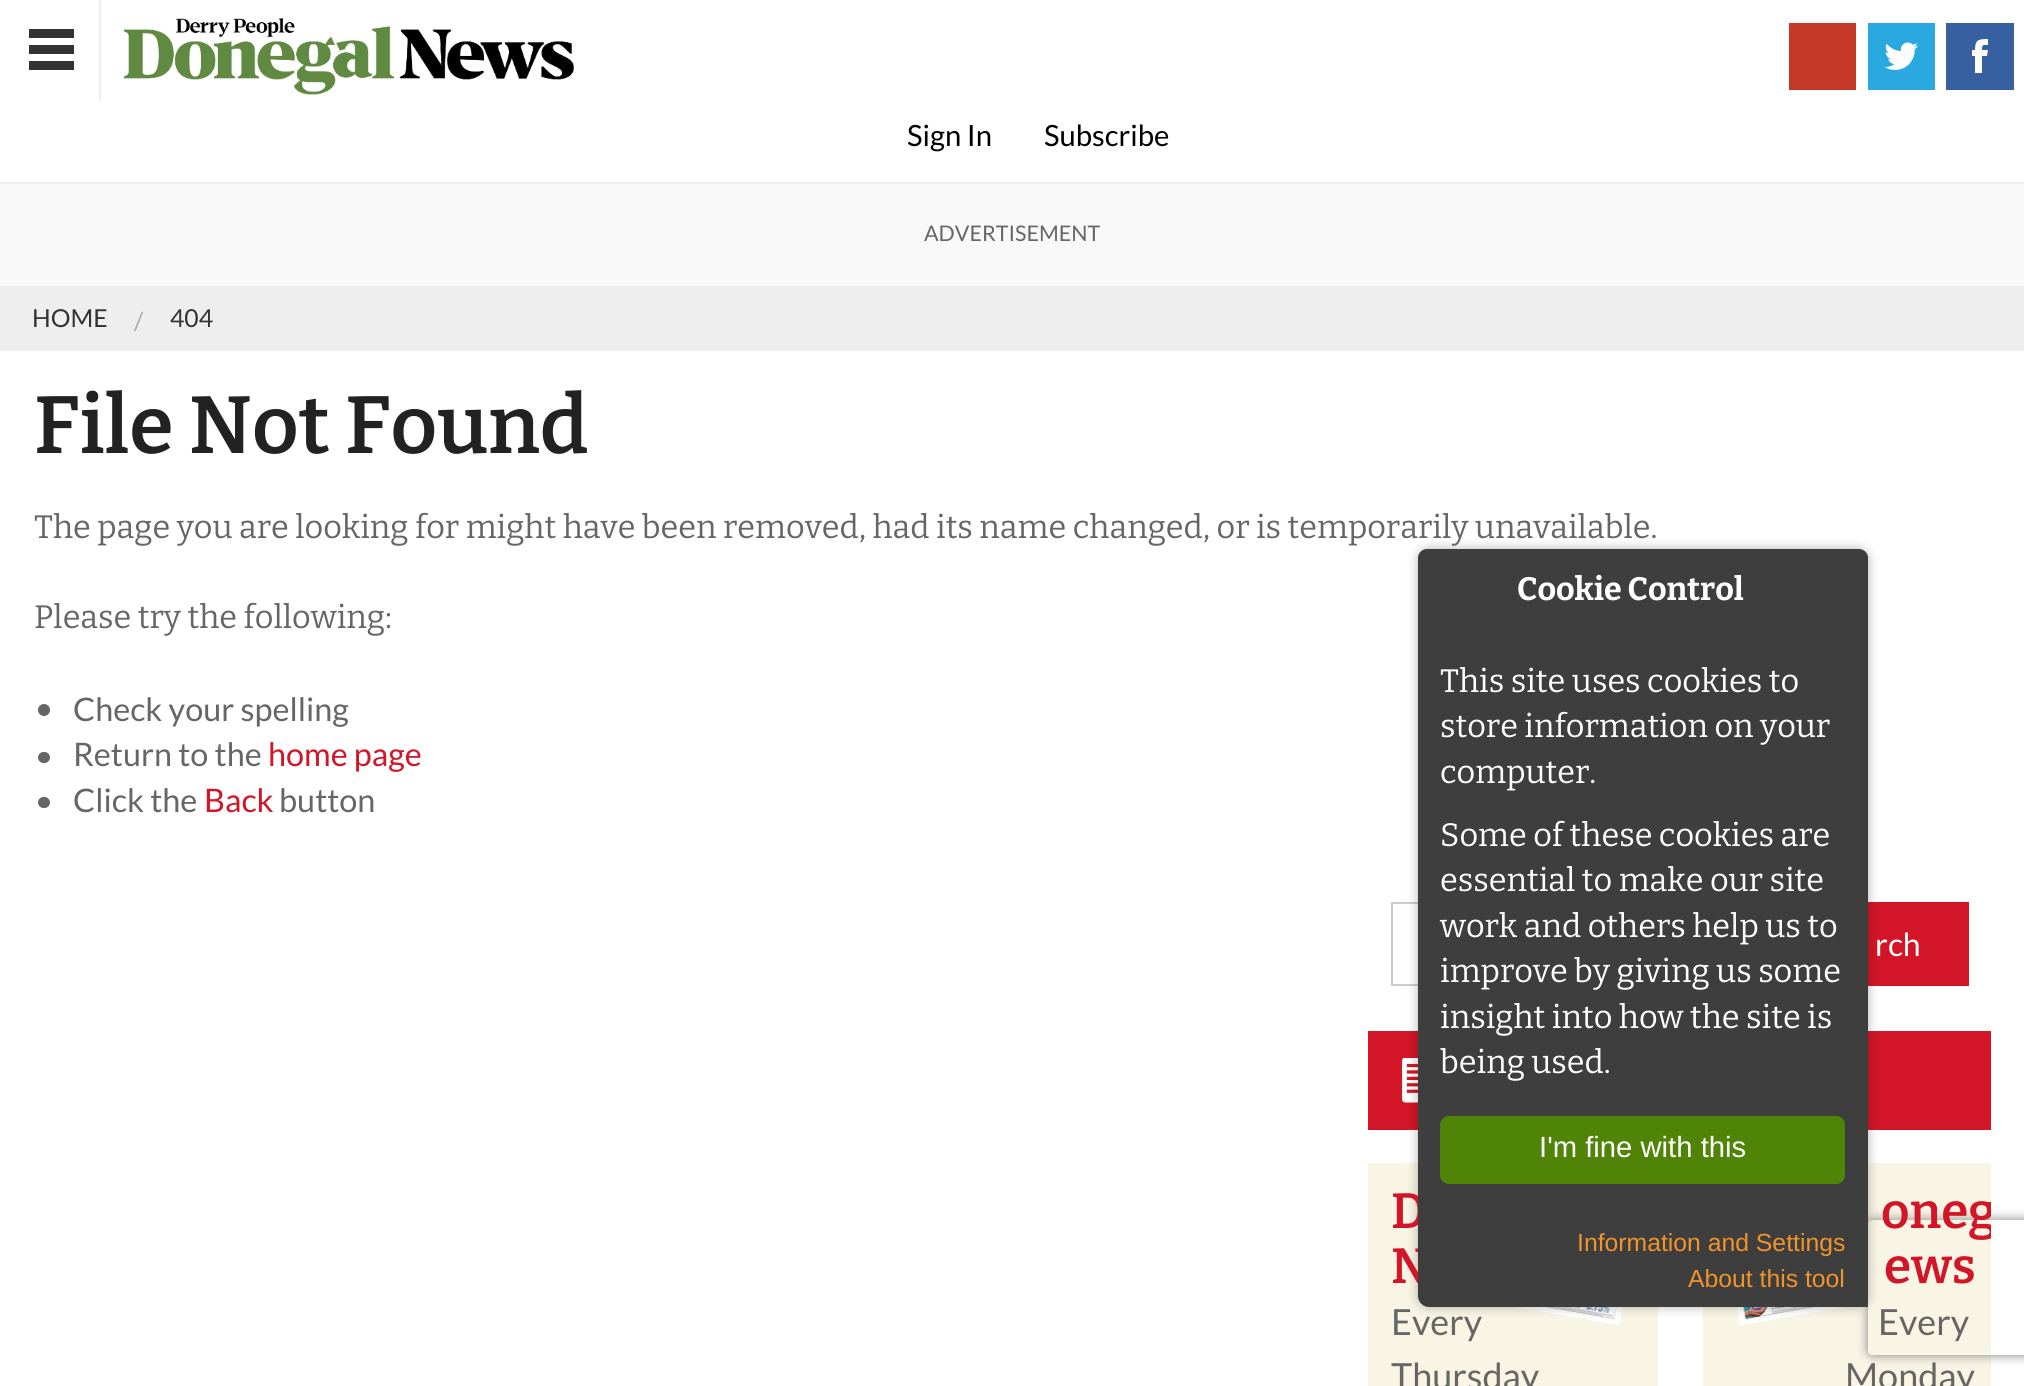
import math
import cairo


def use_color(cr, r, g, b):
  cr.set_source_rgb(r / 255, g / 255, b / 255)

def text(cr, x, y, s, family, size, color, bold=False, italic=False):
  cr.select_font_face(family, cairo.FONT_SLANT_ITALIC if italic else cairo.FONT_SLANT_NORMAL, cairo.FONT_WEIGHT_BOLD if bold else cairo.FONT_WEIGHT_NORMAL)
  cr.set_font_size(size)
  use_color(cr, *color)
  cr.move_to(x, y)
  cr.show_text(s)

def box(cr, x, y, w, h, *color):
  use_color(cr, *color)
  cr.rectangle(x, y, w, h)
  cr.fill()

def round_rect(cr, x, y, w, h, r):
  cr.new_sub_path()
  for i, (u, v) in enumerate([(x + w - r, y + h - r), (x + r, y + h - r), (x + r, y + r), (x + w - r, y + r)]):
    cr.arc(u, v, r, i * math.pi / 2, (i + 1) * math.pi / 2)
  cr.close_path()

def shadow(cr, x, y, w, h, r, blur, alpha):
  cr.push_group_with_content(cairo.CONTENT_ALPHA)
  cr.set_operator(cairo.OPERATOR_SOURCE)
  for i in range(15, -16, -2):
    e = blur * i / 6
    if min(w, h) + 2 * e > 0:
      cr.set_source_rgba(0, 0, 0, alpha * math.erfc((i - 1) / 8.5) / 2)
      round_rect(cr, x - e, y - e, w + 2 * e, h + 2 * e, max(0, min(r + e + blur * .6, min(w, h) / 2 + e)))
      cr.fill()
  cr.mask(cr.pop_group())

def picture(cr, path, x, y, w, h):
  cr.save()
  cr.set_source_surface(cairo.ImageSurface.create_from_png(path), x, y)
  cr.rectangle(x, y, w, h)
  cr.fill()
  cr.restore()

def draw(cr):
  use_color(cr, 249, 249, 249)
  cr.paint()
  box(cr, 0, 0, 2024, 182, 255, 255, 255)
  box(cr, 99, 0, 2, 101, 238, 238, 238)
  box(cr, 29, 61, 45, 9, 51, 51, 51)
  box(cr, 29, 45, 45, 9, 51, 51, 51)
  box(cr, 29, 29, 45, 9, 51, 51, 51)
  picture(cr, "img_01.png", 124, 18, 450, 77)
  box(cr, 1789, 23, 67, 67, 197, 56, 39)
  picture(cr, "img_02.png", 1868, 23, 67, 67)
  cr.save()
  cr.rectangle(1946, 23, 68, 67)
  cr.clip()
  use_color(cr, 54, 96, 159)
  cr.new_path()
  cr.move_to(1946, 22)
  cr.line_to(1946, 90)
  cr.line_to(2014, 90)
  cr.line_to(2014, 22)
  cr.close_path()
  cr.move_to(1987, 56)
  cr.line_to(1982, 56)
  cr.line_to(1982, 73)
  cr.line_to(1975, 73)
  cr.line_to(1975, 56)
  cr.line_to(1972, 56)
  cr.line_to(1972, 50)
  cr.line_to(1975, 50)
  cr.curve_to(1975, 40, 1978, 39, 1988, 39)
  cr.line_to(1988, 45)
  cr.curve_to(1983, 45, 1982, 44, 1982, 50)
  cr.line_to(1988, 50)
  cr.close_path()
  cr.fill()
  cr.restore()
  box(cr, 0, 182, 2024, 2, 238, 238, 238)
  box(cr, 0, 286, 2024, 65, 238, 238, 238)
  box(cr, 0, 351, 2024, 1035, 255, 255, 255)
  use_color(cr, 102, 102, 102)
  cr.arc(44, 710, 6, 0, 2 * math.pi)
  cr.fill()
  round_rect(cr, 38, 752, 12, 11, 5.5)
  cr.fill()
  round_rect(cr, 38, 797, 12, 11, 5.5)
  cr.fill()
  cr.rectangle(1392, 903, 382, 82)
  use_color(cr, 204, 204, 204)
  cr.stroke()
  box(cr, 1868, 902, 101, 84, 210, 22, 39)
  box(cr, 1368, 1031, 623, 99, 210, 22, 39)
  picture(cr, "img_03.png", 1402, 1058, 16, 45)
  box(cr, 1368, 1163, 290, 223, 249, 245, 229)
  picture(cr, "img_04.png", 1514, 1307, 109, 18)
  box(cr, 1703, 1163, 288, 223, 249, 245, 229)
  picture(cr, "img_05.png", 1736, 1307, 109, 19)
  use_color(cr, 0, 0, 0)
  shadow(cr, 1418, 549, 450, 758, 11, 5.5, 0.3)
  cr.save()
  cr.set_fill_rule(cairo.FILL_RULE_EVEN_ODD)
  cr.new_path()
  cr.move_to(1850, 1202)
  cr.line_to(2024, 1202)
  cr.line_to(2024, 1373)
  cr.line_to(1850, 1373)
  cr.close_path()
  cr.move_to(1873, 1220)
  cr.line_to(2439, 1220)
  cr.curve_to(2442, 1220, 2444, 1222, 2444, 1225)
  cr.line_to(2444, 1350)
  cr.curve_to(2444, 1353, 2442, 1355, 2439, 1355)
  cr.line_to(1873, 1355)
  cr.curve_to(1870, 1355, 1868, 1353, 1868, 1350)
  cr.line_to(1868, 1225)
  cr.curve_to(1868, 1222, 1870, 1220, 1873, 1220)
  cr.close_path()
  cr.clip()
  use_color(cr, 128, 128, 128)
  shadow(cr, 1868, 1220, 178, 135, 5, 5.5, 1)
  cr.restore()
  text(cr, 907, 146, "Sign In", "Lato", 29.25, (0, 0, 0))
  text(cr, 1044, 146, "Subscribe", "Lato", 29.25, (0, 0, 0))
  text(cr, 924, 241, "ADVERTISEMENT", "Lato", 21.5, (102, 102, 102))
  text(cr, 32, 327, "HOME", "Lato", 24.75, (51, 51, 51))
  text(cr, 134, 330, "/", "Lato", 24.75, (170, 170, 170))
  text(cr, 170, 327, "404", "Lato", 24.75, (51, 51, 51))
  text(cr, 34, 453, "File Not Found", "Bitter SemiBold", 81, (34, 34, 34))
  text(cr, 34, 538, "The page you are looking for might have been removed, had its name changed, or is temporarily unavailable.", "Bitter", 32.4, (102, 102, 102))
  text(cr, 34, 628, "Please try the following:", "Bitter", 32.4, (102, 102, 102))
  text(cr, 73, 721, "Check your spelling", "Lato", 32.4, (102, 102, 102))
  text(cr, 73, 766, "Return to the", "Lato", 32.4, (102, 102, 102))
  text(cr, 268, 766, "home page", "Lato", 32.4, (210, 22, 39))
  text(cr, 73, 812, "Click the", "Lato", 32.4, (102, 102, 102))
  text(cr, 204, 812, "Back", "Lato", 32.4, (210, 22, 39))
  text(cr, 279, 812, "button", "Lato", 32.4, (102, 102, 102))
  text(cr, 1875, 956, "rch", "Lato", 32, (255, 255, 255))
  text(cr, 1391, 1228, "D", "Bitter SemiBold", 49.5, (210, 22, 39))
  text(cr, 1391, 1283, "N", "Bitter SemiBold", 49.5, (210, 22, 39))
  text(cr, 1391, 1335, "Every", "Lato", 36, (102, 102, 102))
  text(cr, 1391, 1389, "Thursday", "Lato", 36, (102, 102, 102))
  cr.save()
  cr.rectangle(1703, 1163, 288, 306)
  cr.clip()
  text(cr, 1881, 1228, "oneg", "Bitter SemiBold", 49.5, (210, 22, 39))
  cr.restore()
  text(cr, 1884, 1283, "ews", "Bitter SemiBold", 49.5, (210, 22, 39))
  text(cr, 1878, 1335, "Every", "Lato", 36, (102, 102, 102))
  text(cr, 1845, 1389, "Monday", "Lato", 36, (102, 102, 102))
  use_color(cr, 62, 62, 62)
  cr.new_path()
  cr.move_to(1429, 549)
  cr.line_to(1857, 549)
  cr.curve_to(1863, 549, 1868, 554, 1868, 560)
  cr.line_to(1868, 1307)
  cr.line_to(1429, 1307)
  cr.curve_to(1423, 1307, 1418, 1302, 1418, 1296)
  cr.line_to(1418, 560)
  cr.curve_to(1418, 554, 1423, 549, 1429, 549)
  cr.close_path()
  cr.fill()
  cr.new_path()
  cr.move_to(1427, 549)
  cr.line_to(1859, 549)
  cr.curve_to(1864, 549, 1868, 553, 1868, 558)
  cr.line_to(1868, 639)
  cr.line_to(1418, 639)
  cr.line_to(1418, 558)
  cr.curve_to(1418, 553, 1422, 549, 1427, 549)
  cr.close_path()
  cr.fill()
  text(cr, 1517, 600, "Cookie Control", "Bitter", 32.25, (255, 255, 255), bold=True)
  text(cr, 1440, 692, "This site uses cookies to", "Bitter", 32.4, (255, 255, 255))
  text(cr, 1440, 737, "store information on your", "Bitter", 32.4, (255, 255, 255))
  text(cr, 1440, 783, "computer.", "Bitter", 32.4, (255, 255, 255))
  text(cr, 1440, 846, "Some of these cookies are", "Bitter", 32.4, (255, 255, 255))
  text(cr, 1440, 891, "essential to make our site", "Bitter", 32.4, (255, 255, 255))
  text(cr, 1440, 937, "work and others help us to", "Bitter", 32.4, (255, 255, 255))
  text(cr, 1440, 982, "improve by giving us some", "Bitter", 32.4, (255, 255, 255))
  text(cr, 1440, 1028, "insight into how the site is", "Bitter", 32.4, (255, 255, 255))
  text(cr, 1440, 1073, "being used.", "Bitter", 32.4, (255, 255, 255))
  use_color(cr, 79, 132, 7)
  round_rect(cr, 1440, 1116, 405, 68, 9)
  cr.fill()
  text(cr, 1539, 1157, "I'm fine with this", "Liberation Sans", 29.25, (255, 255, 255))
  text(cr, 1577, 1251, "Information and Settings", "Liberation Sans", 24.75, (240, 148, 43))
  text(cr, 1688, 1287, "About this tool", "Liberation Sans", 24.75, (240, 148, 43))


surface = cairo.ImageSurface(cairo.FORMAT_RGB24, 2024, 1386)
cr = cairo.Context(surface)
options = cairo.FontOptions()
options.set_hint_metrics(cairo.HINT_METRICS_OFF)
options.set_hint_style(cairo.HINT_STYLE_NONE)
cr.set_font_options(options)
cr.set_miter_limit(4)
draw(cr)
surface.write_to_png("out.png")
